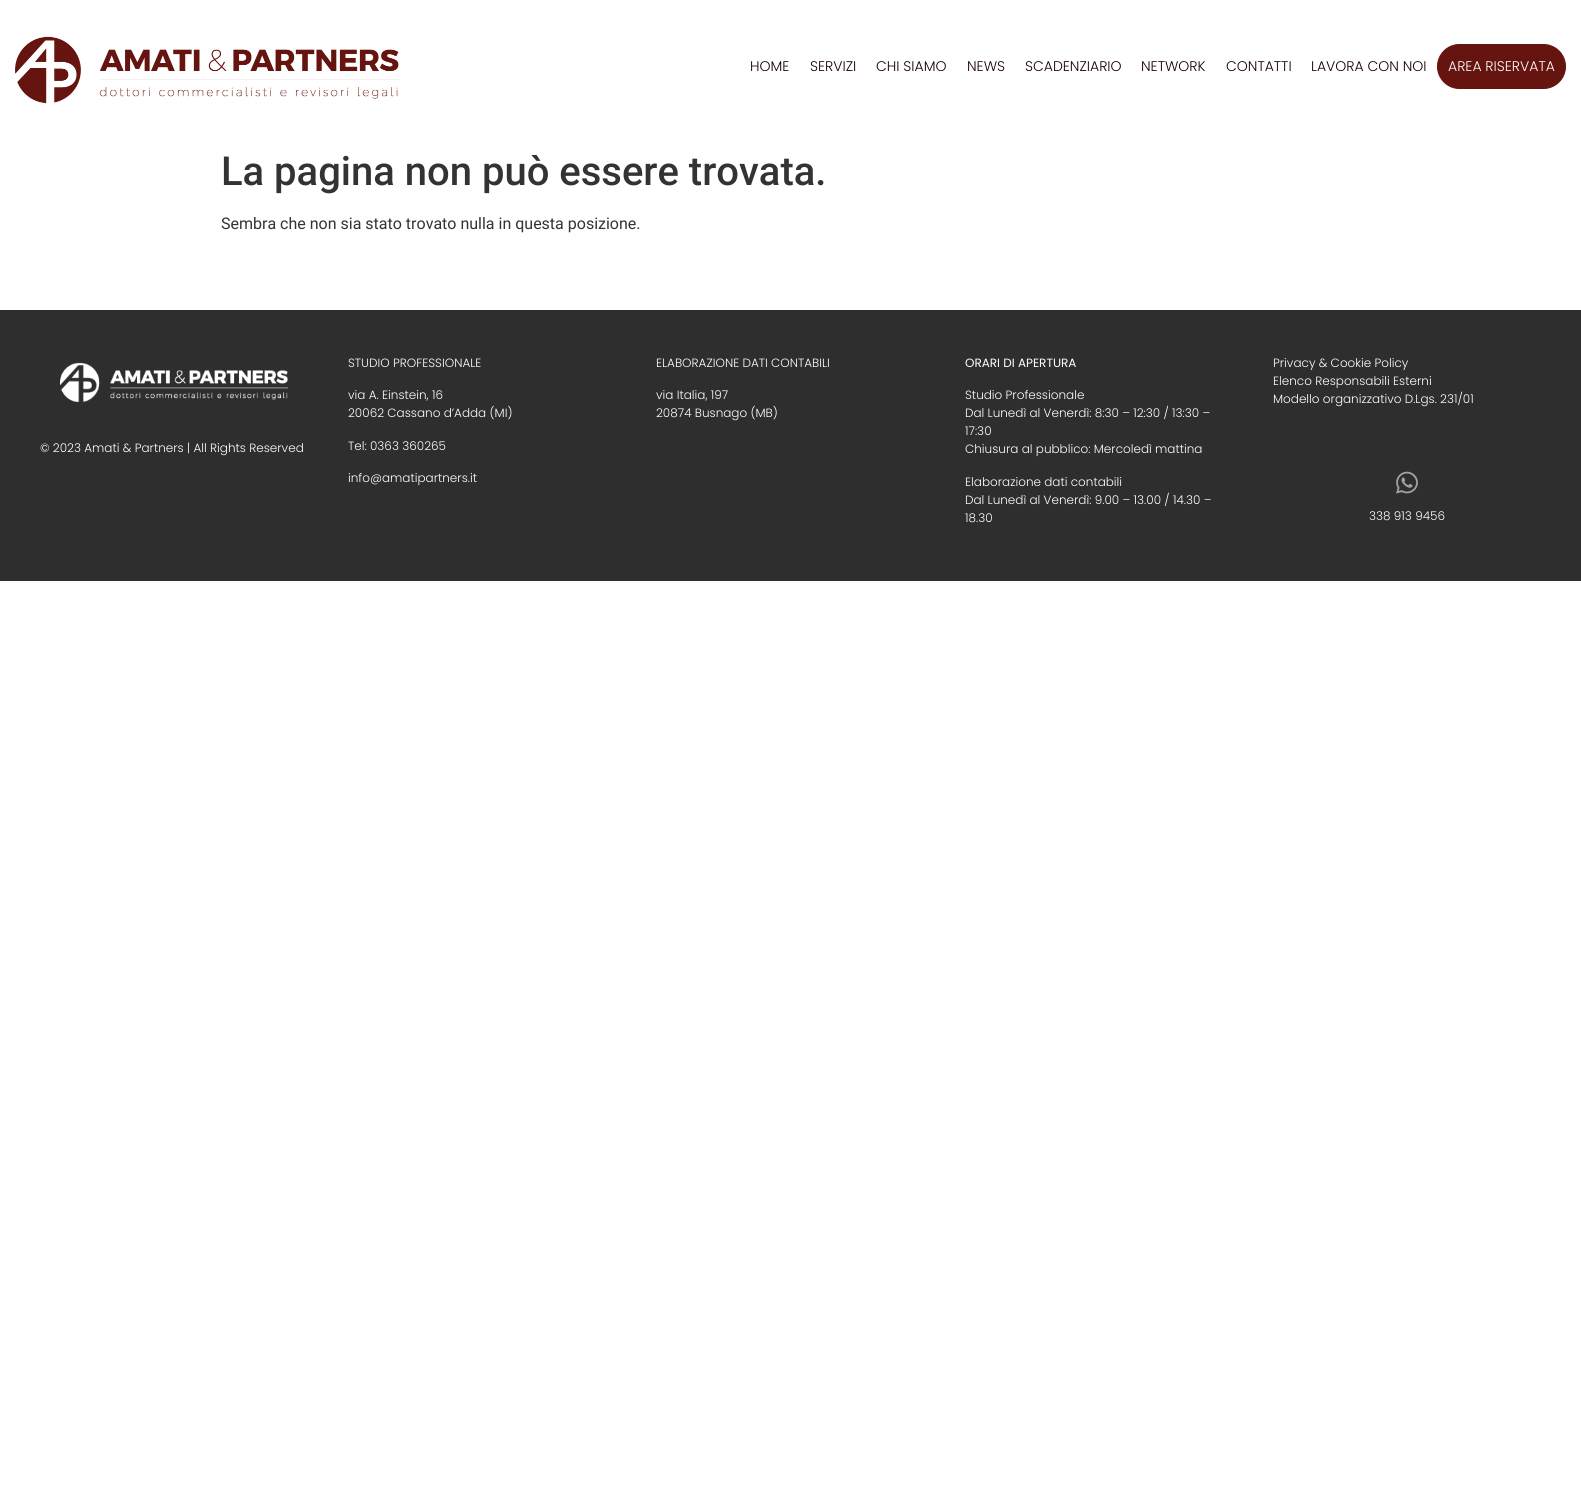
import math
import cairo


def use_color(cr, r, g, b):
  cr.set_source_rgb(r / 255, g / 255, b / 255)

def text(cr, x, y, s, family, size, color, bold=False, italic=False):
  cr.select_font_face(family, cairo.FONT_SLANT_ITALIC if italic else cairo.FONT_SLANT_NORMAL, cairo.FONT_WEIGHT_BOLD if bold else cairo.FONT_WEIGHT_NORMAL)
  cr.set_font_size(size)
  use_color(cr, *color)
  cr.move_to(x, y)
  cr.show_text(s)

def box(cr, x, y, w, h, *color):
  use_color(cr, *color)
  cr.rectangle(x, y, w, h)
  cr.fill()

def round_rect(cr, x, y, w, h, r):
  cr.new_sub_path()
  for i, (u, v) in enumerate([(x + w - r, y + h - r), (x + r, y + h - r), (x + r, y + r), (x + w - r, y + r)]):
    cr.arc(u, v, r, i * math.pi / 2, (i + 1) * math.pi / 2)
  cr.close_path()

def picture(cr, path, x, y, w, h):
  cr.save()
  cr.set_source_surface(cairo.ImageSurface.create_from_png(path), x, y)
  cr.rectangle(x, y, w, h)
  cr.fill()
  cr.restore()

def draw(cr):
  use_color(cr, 255, 255, 255)
  cr.paint()
  picture(cr, "img_01.png", 15, 36, 384, 68)
  use_color(cr, 101, 20, 15)
  round_rect(cr, 1437.5, 44.5, 128, 44, 22)
  cr.fill_preserve()
  cr.set_line_width(1)
  cr.stroke()
  box(cr, 0, 310, 1581, 271, 46, 46, 46)
  picture(cr, "img_02.png", 60, 362, 228, 41)
  picture(cr, "img_03.png", 1396, 471, 22, 23)
  text(cr, 750, 71, "HOME", "Poppins Light", 14, (24, 0, 0))
  text(cr, 810, 71, "SERVIZI", "Poppins Light", 14, (24, 0, 0))
  text(cr, 876, 71, "CHI SIAMO", "Poppins Light", 14, (24, 0, 0))
  text(cr, 967, 71, "NEWS", "Poppins Light", 14, (24, 0, 0))
  text(cr, 1025, 71, "SCADENZIARIO", "Poppins Light", 14, (24, 0, 0))
  text(cr, 1141, 71, "NETWORK", "Poppins Light", 14, (24, 0, 0))
  text(cr, 1226, 71, "CONTATTI", "Poppins Light", 14, (24, 0, 0))
  text(cr, 1311, 71, "LAVORA CON NOI", "Poppins Light", 14, (24, 0, 0))
  text(cr, 1448, 71, "AREA RISERVATA", "Poppins Light", 14, (255, 255, 255))
  text(cr, 221, 185, "La pagina non può essere trovata.", "Roboto Medium", 40, (51, 51, 51))
  text(cr, 221, 229, "Sembra che non sia stato trovato nulla in questa posizione.", "Roboto", 16, (51, 51, 51))
  text(cr, 40, 452, "© 2023 Amati & Partners | All Rights Reserved", "Poppins Light", 12, (255, 255, 255))
  text(cr, 348, 367, "STUDIO PROFESSIONALE", "Poppins Light", 12, (255, 255, 255))
  text(cr, 348, 399, "via A. Einstein, 16", "Poppins Light", 12, (255, 255, 255))
  text(cr, 348, 417, "20062 Cassano d’Adda (MI)", "Poppins Light", 12, (255, 255, 255))
  text(cr, 348, 450, "Tel: 0363 360265", "Poppins Light", 12, (255, 255, 255))
  text(cr, 348, 482, "info@amatipartners.it", "Poppins Light", 12, (255, 255, 255))
  text(cr, 656, 367, "ELABORAZIONE DATI CONTABILI", "Poppins Light", 12, (255, 255, 255))
  text(cr, 656, 399, "via Italia, 197", "Poppins Light", 12, (255, 255, 255))
  text(cr, 656, 417, "20874 Busnago (MB)", "Poppins Light", 12, (255, 255, 255))
  text(cr, 965, 367, "ORARI DI APERTURA", "Poppins", 12, (255, 255, 255))
  text(cr, 965, 399, "Studio Professionale", "Poppins Light", 12, (255, 255, 255))
  text(cr, 965, 417, "Dal Lunedì al Venerdì: 8:30 – 12:30 / 13:30 –", "Poppins Light", 12, (255, 255, 255))
  text(cr, 965, 435, "17:30", "Poppins Light", 12, (255, 255, 255))
  text(cr, 965, 453, "Chiusura al pubblico: Mercoledì mattina", "Poppins Light", 12, (255, 255, 255))
  text(cr, 965, 486, "Elaborazione dati contabili", "Poppins Light", 12, (255, 255, 255))
  text(cr, 965, 504, "Dal Lunedì al Venerdì: 9.00 – 13.00 / 14.30 –", "Poppins Light", 12, (255, 255, 255))
  text(cr, 965, 522, "18.30", "Poppins Light", 12, (255, 255, 255))
  text(cr, 1273, 367, "Privacy & Cookie Policy", "Poppins Light", 12, (255, 255, 255))
  text(cr, 1273, 385, "Elenco Responsabili Esterni", "Poppins Light", 12, (255, 255, 255))
  text(cr, 1273, 403, "Modello organizzativo D.Lgs. 231/01", "Poppins Light", 12, (255, 255, 255))
  text(cr, 1369, 520, "338 913 9456", "Poppins Light", 12, (255, 255, 255))


surface = cairo.ImageSurface(cairo.FORMAT_RGB24, 1581, 1511)
cr = cairo.Context(surface)
options = cairo.FontOptions()
options.set_hint_metrics(cairo.HINT_METRICS_OFF)
options.set_hint_style(cairo.HINT_STYLE_NONE)
cr.set_font_options(options)
cr.set_miter_limit(4)
draw(cr)
surface.write_to_png("out.png")
